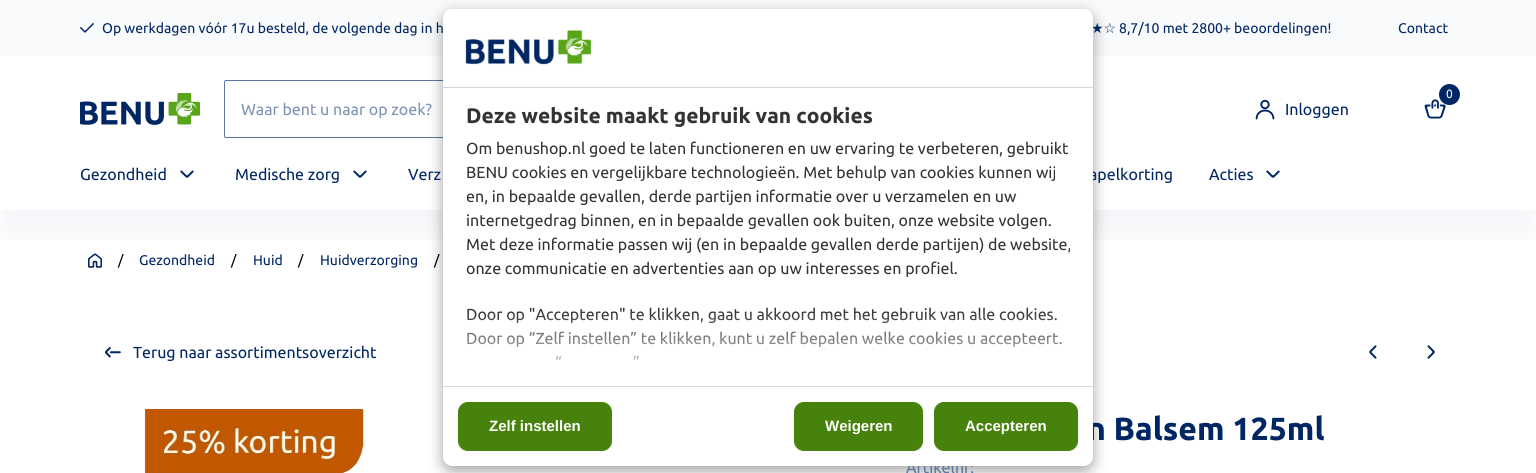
import math
import cairo


def use_color(cr, r, g, b):
  cr.set_source_rgb(r / 255, g / 255, b / 255)

def text(cr, x, y, s, family, size, color, bold=False, italic=False):
  cr.select_font_face(family, cairo.FONT_SLANT_ITALIC if italic else cairo.FONT_SLANT_NORMAL, cairo.FONT_WEIGHT_BOLD if bold else cairo.FONT_WEIGHT_NORMAL)
  cr.set_font_size(size)
  use_color(cr, *color)
  cr.move_to(x, y)
  cr.show_text(s)

def box(cr, x, y, w, h, *color):
  use_color(cr, *color)
  cr.rectangle(x, y, w, h)
  cr.fill()

def round_rect(cr, x, y, w, h, r):
  cr.new_sub_path()
  for i, (u, v) in enumerate([(x + w - r, y + h - r), (x + r, y + h - r), (x + r, y + r), (x + w - r, y + r)]):
    cr.arc(u, v, r, i * math.pi / 2, (i + 1) * math.pi / 2)
  cr.close_path()

def shadow(cr, x, y, w, h, r, blur, alpha):
  cr.push_group_with_content(cairo.CONTENT_ALPHA)
  cr.set_operator(cairo.OPERATOR_SOURCE)
  for i in range(15, -16, -2):
    e = blur * i / 6
    if min(w, h) + 2 * e > 0:
      cr.set_source_rgba(0, 0, 0, alpha * math.erfc((i - 1) / 8.5) / 2)
      round_rect(cr, x - e, y - e, w + 2 * e, h + 2 * e, max(0, min(r + e + blur * .6, min(w, h) / 2 + e)))
      cr.fill()
  cr.mask(cr.pop_group())

def picture(cr, path, x, y, w, h):
  cr.save()
  cr.set_source_surface(cairo.ImageSurface.create_from_png(path), x, y)
  cr.rectangle(x, y, w, h)
  cr.fill()
  cr.restore()

def draw(cr):
  use_color(cr, 255, 255, 255)
  cr.paint()
  box(cr, 0, 0, 1536, 56, 248, 250, 251)
  picture(cr, "img_01.png", 80, 23, 14, 10)
  picture(cr, "img_07.png", 88, 253, 14, 15)
  cr.save()
  cr.rectangle(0, 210, 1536, 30)
  cr.clip()
  use_color(cr, 0, 38, 100)
  shadow(cr, 0, 162, 1536, 72, 0, 24, 0.05)
  cr.restore()
  picture(cr, "img_02.png", 80, 93, 120, 32)
  cr.new_path()
  cr.move_to(226, 80.5)
  cr.line_to(836.5, 80.5)
  cr.line_to(836.5, 137.5)
  cr.line_to(226, 137.5)
  cr.curve_to(225, 137.5, 224.5, 137, 224.5, 136)
  cr.line_to(224.5, 82)
  cr.curve_to(224.5, 81, 225, 80.5, 226, 80.5)
  cr.close_path()
  use_color(cr, 92, 119, 162)
  cr.set_line_width(1)
  cr.stroke()
  picture(cr, "img_03.png", 1424, 99, 22, 20)
  use_color(cr, 0, 38, 100)
  cr.arc(1449.5, 94.5, 10.5, 0, 2 * math.pi)
  cr.fill()
  picture(cr, "img_04.png", 1255, 99, 20, 21)
  use_color(cr, 0, 0, 0)
  shadow(cr, 443, 14, 650, 457, 10, 7.5, 0.19)
  shadow(cr, 443, 14, 650, 457, 10, 7.5, 0.2)
  picture(cr, "img_06.png", 180, 170, 14, 8)
  picture(cr, "img_06.png", 353, 170, 14, 8)
  picture(cr, "img_06.png", 1266, 170, 14, 8)
  picture(cr, "img_08.png", 105, 347, 16, 11)
  picture(cr, "img_09.png", 1369, 345, 8, 14)
  picture(cr, "img_10.png", 1427, 345, 8, 14)
  picture(cr, "img_11.png", 144, 409, 220, 64)
  text(cr, 102, 33, "Op werkdagen vóór 17u besteld, de volgende dag in h", "Ubuntu", 14, (0, 38, 100))
  text(cr, 1091, 33, "★☆", "DejaVu Sans", 14, (0, 38, 100))
  text(cr, 1119, 33, "8,7/10 met 2800+ beoordelingen!", "Ubuntu", 14, (0, 38, 100))
  text(cr, 1398, 33, "Contact", "Ubuntu", 14, (0, 38, 100))
  text(cr, 241, 115, "Waar bent u naar op zoek?", "Ubuntu", 16, (125, 146, 181))
  text(cr, 1446, 98, "0", "Ubuntu", 12, (255, 255, 255))
  text(cr, 1285, 115, "Inloggen", "Ubuntu", 16, (0, 38, 100))
  text(cr, 80, 180, "Gezondheid", "Ubuntu", 16, (0, 38, 100))
  text(cr, 235, 180, "Medische zorg", "Ubuntu", 16, (0, 38, 100))
  text(cr, 408, 180, "Verz", "Ubuntu", 16, (0, 38, 100))
  text(cr, 1089, 180, "apelkorting", "Ubuntu", 16, (0, 38, 100))
  text(cr, 1209, 180, "Acties", "Ubuntu", 16, (0, 38, 100))
  text(cr, 118, 265, "/", "Ubuntu", 14, (0, 0, 0))
  text(cr, 139, 265, "Gezondheid", "Ubuntu", 14, (0, 38, 100))
  text(cr, 231, 265, "/", "Ubuntu", 14, (0, 0, 0))
  text(cr, 253, 265, "Huid", "Ubuntu", 14, (0, 38, 100))
  text(cr, 298, 265, "/", "Ubuntu", 14, (0, 0, 0))
  text(cr, 320, 265, "Huidverzorging", "Ubuntu", 14, (0, 38, 100))
  text(cr, 434, 265, "/", "Ubuntu", 14, (0, 0, 0))
  text(cr, 133, 358, "Terug naar assortimentsoverzicht", "Ubuntu", 16, (0, 38, 100))
  text(cr, 1087, 440, "n Balsem 125ml", "Ubuntu", 32, (0, 38, 100), bold=True)
  text(cr, 906, 473, "Artikelnr:", "Ubuntu", 16, (92, 119, 162))
  use_color(cr, 255, 255, 255)
  round_rect(cr, 443, 9, 650, 457, 10)
  cr.fill()
  cr.new_path()
  cr.move_to(443, 386)
  cr.line_to(1093, 386)
  cr.line_to(1093, 456)
  cr.curve_to(1093, 461.5, 1088.5, 466, 1083, 466)
  cr.line_to(453, 466)
  cr.curve_to(447.5, 466, 443, 461.5, 443, 456)
  cr.close_path()
  cr.fill()
  use_color(cr, 71, 130, 12)
  round_rect(cr, 934.5, 402.5, 143, 48, 9.5)
  cr.fill_preserve()
  cr.stroke()
  text(cr, 965, 431, "Accepteren", "Liberation Sans", 15, (255, 255, 255), bold=True)
  use_color(cr, 71, 130, 12)
  round_rect(cr, 794.5, 402.5, 128, 48, 9.5)
  cr.fill_preserve()
  cr.stroke()
  text(cr, 825, 431, "Weigeren", "Liberation Sans", 15, (255, 255, 255), bold=True)
  use_color(cr, 71, 130, 12)
  round_rect(cr, 458.5, 402.5, 153, 48, 9.5)
  cr.fill_preserve()
  cr.stroke()
  text(cr, 489, 431, "Zelf instellen", "Liberation Sans", 15, (255, 255, 255), bold=True)
  text(cr, 633, 368, "”", "Ubuntu", 16, (51, 51, 51))
  text(cr, 555, 368, "“", "Ubuntu", 16, (51, 51, 51))
  text(cr, 466, 344, "Door op “Zelf instellen” te klikken, kunt u zelf bepalen welke cookies u accepteert.", "Ubuntu", 16, (51, 51, 51))
  text(cr, 466, 320, "Door op \"Accepteren\" te klikken, gaat u akkoord met het gebruik van alle cookies.", "Ubuntu", 16, (51, 51, 51))
  gradient = cairo.LinearGradient(761, 386, 761, 311)
  gradient.add_color_stop_rgba(0, 1, 1, 1, 1)
  gradient.add_color_stop_rgba(1, 1, 1, 1, 0)
  cr.set_source(gradient)
  cr.rectangle(466, 313, 595, 47)
  cr.fill()
  text(cr, 466, 274, "onze communicatie en advertenties aan op uw interesses en profiel.", "Ubuntu", 16, (51, 51, 51))
  text(cr, 466, 250, "Met deze informatie passen wij (en in bepaalde gevallen derde partijen) de website,", "Ubuntu", 16, (51, 51, 51))
  text(cr, 466, 226, "internetgedrag binnen, en in bepaalde gevallen ook buiten, onze website volgen.", "Ubuntu", 16, (51, 51, 51))
  text(cr, 466, 202, "en, in bepaalde gevallen, derde partijen informatie over u verzamelen en uw", "Ubuntu", 16, (51, 51, 51))
  text(cr, 466, 178, "BENU cookies en vergelijkbare technologieën. Met behulp van cookies kunnen wij", "Ubuntu", 16, (51, 51, 51))
  text(cr, 466, 154, "Om benushop.nl goed te laten functioneren en uw ervaring te verbeteren, gebruikt", "Ubuntu", 16, (51, 51, 51))
  text(cr, 466, 123, "Deze website maakt gebruik van cookies", "Ubuntu", 21, (51, 51, 51), bold=True)
  box(cr, 443, 386, 650, 1, 214, 214, 214)
  use_color(cr, 255, 255, 255)
  cr.new_path()
  cr.move_to(453, 9)
  cr.line_to(1083, 9)
  cr.curve_to(1088.5, 9, 1093, 13.5, 1093, 19)
  cr.line_to(1093, 88)
  cr.line_to(443, 88)
  cr.line_to(443, 19)
  cr.curve_to(443, 13.5, 447.5, 9, 453, 9)
  cr.close_path()
  cr.fill()
  picture(cr, "img_05.png", 465, 30, 126, 35)
  box(cr, 443, 87, 650, 1, 214, 214, 214)


surface = cairo.ImageSurface(cairo.FORMAT_RGB24, 1536, 473)
cr = cairo.Context(surface)
options = cairo.FontOptions()
options.set_hint_metrics(cairo.HINT_METRICS_OFF)
options.set_hint_style(cairo.HINT_STYLE_NONE)
cr.set_font_options(options)
cr.set_miter_limit(4)
draw(cr)
surface.write_to_png("out.png")
